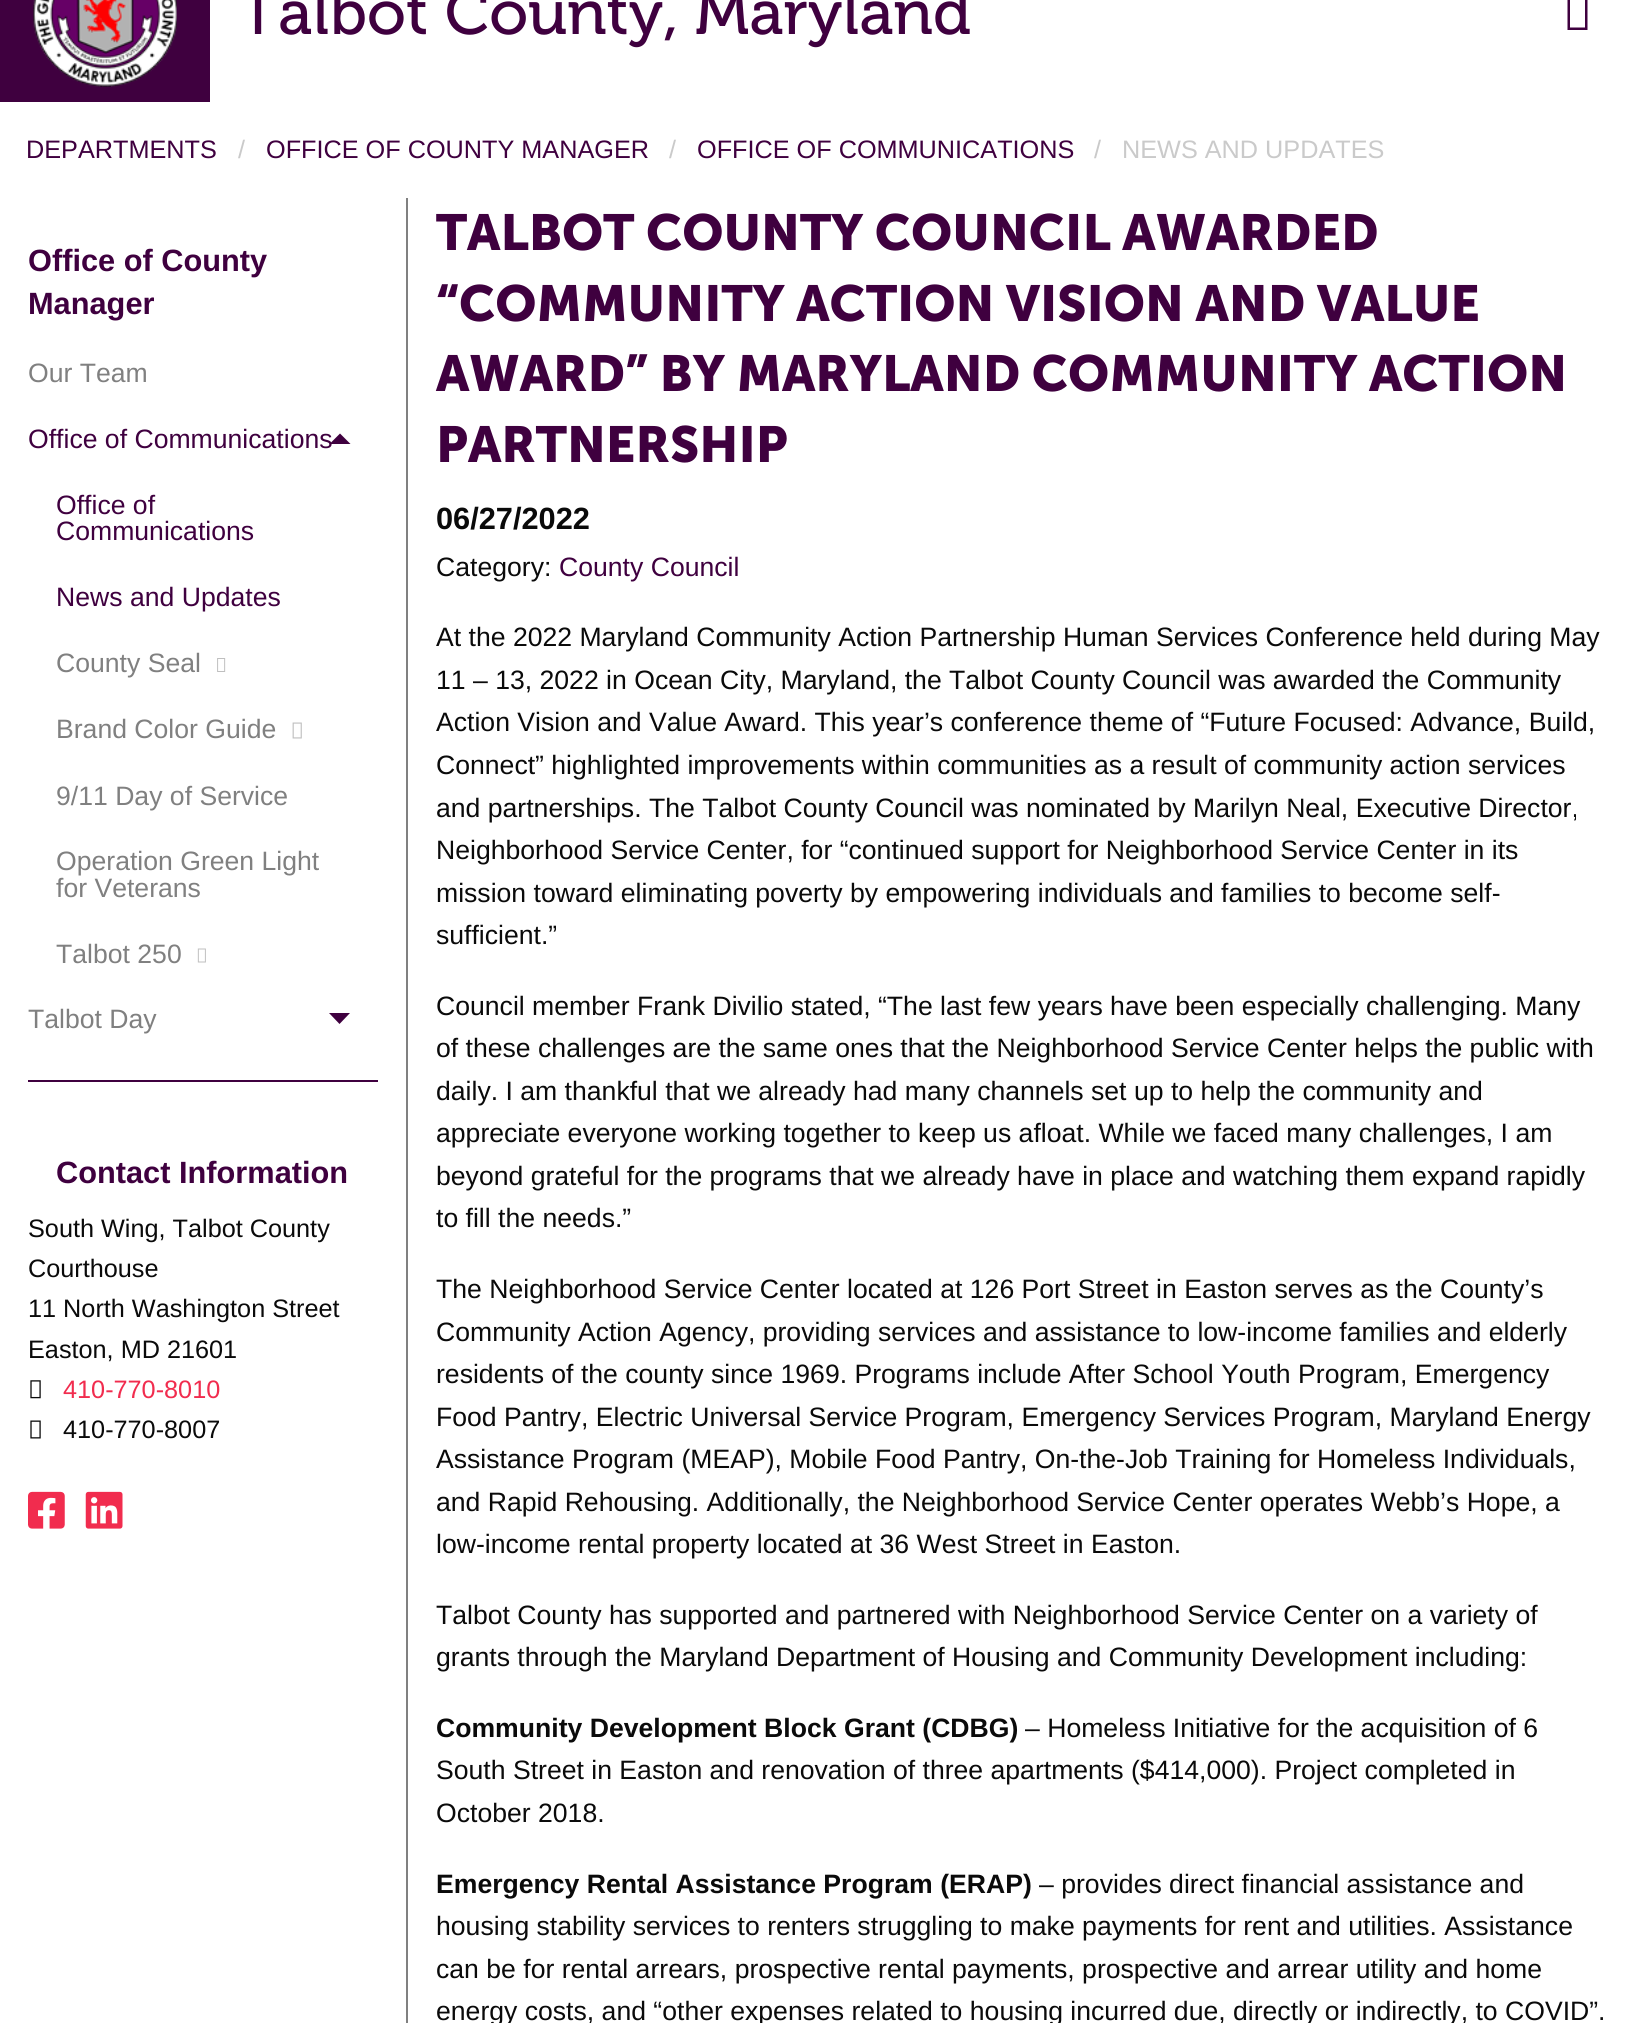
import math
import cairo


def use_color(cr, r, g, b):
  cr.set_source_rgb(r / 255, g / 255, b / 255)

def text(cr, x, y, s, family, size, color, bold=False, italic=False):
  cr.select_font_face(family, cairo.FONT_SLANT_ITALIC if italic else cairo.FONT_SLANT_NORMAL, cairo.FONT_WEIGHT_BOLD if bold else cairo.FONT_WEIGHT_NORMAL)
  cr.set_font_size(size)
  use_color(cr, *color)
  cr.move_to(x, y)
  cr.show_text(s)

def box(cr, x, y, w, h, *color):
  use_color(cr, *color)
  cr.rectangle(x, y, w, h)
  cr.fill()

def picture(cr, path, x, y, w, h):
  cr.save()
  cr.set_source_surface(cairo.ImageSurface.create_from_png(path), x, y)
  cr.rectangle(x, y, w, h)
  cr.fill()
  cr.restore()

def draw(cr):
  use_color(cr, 255, 255, 255)
  cr.paint()
  box(cr, 0, 0, 210, 102, 63, 0, 63)
  picture(cr, "img_01.png", 33, 0, 144, 87)
  cr.new_path()
  cr.move_to(1567.5, 30)
  cr.line_to(1567.5, -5)
  cr.line_to(1587.5, -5)
  cr.line_to(1587.5, 30)
  cr.close_path()
  cr.move_to(1570, 27.5)
  cr.line_to(1585, 27.5)
  cr.line_to(1585, -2.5)
  cr.line_to(1570, -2.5)
  cr.close_path()
  cr.fill()
  box(cr, 406, 198, 2, 1825, 128, 128, 128)
  use_color(cr, 63, 0, 63)
  cr.new_path()
  cr.move_to(350.5, 444)
  cr.line_to(329.5, 444)
  cr.line_to(340, 433.5)
  cr.close_path()
  cr.fill()
  picture(cr, "img_02.png", 217, 658, 9, 14)
  picture(cr, "img_03.png", 292, 722, 10, 17)
  picture(cr, "img_04.png", 197, 948, 9, 15)
  cr.new_path()
  cr.move_to(329, 1013)
  cr.line_to(350, 1013)
  cr.line_to(339.5, 1024)
  cr.close_path()
  cr.fill()
  box(cr, 28, 1080, 350, 2, 63, 0, 63)
  picture(cr, "img_05.png", 30, 1380, 11, 19)
  picture(cr, "img_06.png", 30, 1420, 11, 19)
  picture(cr, "img_07.png", 28, 1491, 37, 38)
  picture(cr, "img_08.png", 85, 1491, 38, 38)
  text(cr, 238, 34, "Talbot County, Maryland", "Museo", 63, (63, 0, 63))
  text(cr, 26, 158, "DEPARTMENTS", "Liberation Sans", 25.25, (63, 0, 63))
  text(cr, 238, 158, "/", "Liberation Sans", 25.25, (202, 202, 202))
  text(cr, 266, 158, "OFFICE OF COUNTY MANAGER", "Liberation Sans", 25.25, (63, 0, 63))
  text(cr, 669, 158, "/", "Liberation Sans", 25.25, (202, 202, 202))
  text(cr, 697, 158, "OFFICE OF COMMUNICATIONS", "Liberation Sans", 25.25, (63, 0, 63))
  text(cr, 1094, 158, "/", "Liberation Sans", 25.25, (202, 202, 202))
  text(cr, 1122, 158, "NEWS AND UPDATES", "Liberation Sans", 25.25, (202, 202, 202))
  text(cr, 28, 271, "Office of County", "Liberation Sans", 30.75, (63, 0, 63), bold=True)
  text(cr, 28, 314, "Manager", "Liberation Sans", 30.75, (63, 0, 63), bold=True)
  text(cr, 28, 382, "Our Team", "Liberation Sans", 26.6, (128, 128, 128))
  text(cr, 28, 448, "Office of Communications", "Liberation Sans", 26.6, (63, 0, 63))
  text(cr, 56, 514, "Office of", "Liberation Sans", 26.6, (63, 0, 63))
  text(cr, 56, 540, "Communications", "Liberation Sans", 26.6, (63, 0, 63))
  text(cr, 56, 606, "News and Updates", "Liberation Sans", 26.6, (63, 0, 63))
  text(cr, 56, 672, "County Seal", "Liberation Sans", 26.6, (128, 128, 128))
  text(cr, 56, 738, "Brand Color Guide", "Liberation Sans", 26.6, (128, 128, 128))
  text(cr, 56, 805, "9/11 Day of Service", "Liberation Sans", 26.6, (128, 128, 128))
  text(cr, 56, 870, "Operation Green Light", "Liberation Sans", 26.6, (128, 128, 128))
  text(cr, 56, 897, "for Veterans", "Liberation Sans", 26.6, (128, 128, 128))
  text(cr, 56, 963, "Talbot 250", "Liberation Sans", 26.6, (128, 128, 128))
  text(cr, 28, 1028, "Talbot Day", "Liberation Sans", 26.6, (128, 128, 128))
  text(cr, 56, 1183, "Contact Information", "Liberation Sans", 30.75, (63, 0, 63), bold=True)
  text(cr, 28, 1237, "South Wing, Talbot County", "Liberation Sans", 25.25, (10, 10, 10))
  text(cr, 28, 1277, "Courthouse", "Liberation Sans", 25.25, (10, 10, 10))
  text(cr, 28, 1317, "11 North Washington Street", "Liberation Sans", 25.25, (10, 10, 10))
  text(cr, 28, 1358, "Easton, MD 21601", "Liberation Sans", 25.25, (10, 10, 10))
  text(cr, 63, 1398, "410-770-8010", "Liberation Sans", 25.25, (241, 44, 78))
  text(cr, 63, 1438, "410-770-8007", "Liberation Sans", 25.25, (10, 10, 10))
  text(cr, 436, 250, "TALBOT COUNTY COUNCIL AWARDED", "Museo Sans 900", 50.4, (63, 0, 63), bold=True)
  text(cr, 436, 321, "“COMMUNITY ACTION VISION AND VALUE", "Museo Sans 900", 50.4, (63, 0, 63), bold=True)
  text(cr, 436, 391, "AWARD” BY MARYLAND COMMUNITY ACTION", "Museo Sans 900", 50.4, (63, 0, 63), bold=True)
  text(cr, 436, 462, "PARTNERSHIP", "Museo Sans 900", 50.4, (63, 0, 63), bold=True)
  text(cr, 436, 529, "06/27/2022", "Liberation Sans", 30.75, (10, 10, 10), bold=True)
  text(cr, 436, 576, "Category:", "Liberation Sans", 26.6, (10, 10, 10))
  text(cr, 559, 576, "County Council", "Liberation Sans", 26.6, (63, 0, 63))
  text(cr, 436, 646, "At the 2022 Maryland Community Action Partnership Human Services Conference held during May", "Liberation Sans", 26.6, (10, 10, 10))
  text(cr, 436, 689, "11 – 13, 2022 in Ocean City, Maryland, the Talbot County Council was awarded the Community", "Liberation Sans", 26.6, (10, 10, 10))
  text(cr, 436, 731, "Action Vision and Value Award. This year’s conference theme of “Future Focused: Advance, Build,", "Liberation Sans", 26.6, (10, 10, 10))
  text(cr, 436, 774, "Connect” highlighted improvements within communities as a result of community action services", "Liberation Sans", 26.6, (10, 10, 10))
  text(cr, 436, 817, "and partnerships. The Talbot County Council was nominated by Marilyn Neal, Executive Director,", "Liberation Sans", 26.6, (10, 10, 10))
  text(cr, 436, 859, "Neighborhood Service Center, for “continued support for Neighborhood Service Center in its", "Liberation Sans", 26.6, (10, 10, 10))
  text(cr, 436, 902, "mission toward eliminating poverty by empowering individuals and families to become self-", "Liberation Sans", 26.6, (10, 10, 10))
  text(cr, 436, 944, "sufficient.”", "Liberation Sans", 26.6, (10, 10, 10))
  text(cr, 436, 1015, "Council member Frank Divilio stated, “The last few years have been especially challenging. Many", "Liberation Sans", 26.6, (10, 10, 10))
  text(cr, 436, 1057, "of these challenges are the same ones that the Neighborhood Service Center helps the public with", "Liberation Sans", 26.6, (10, 10, 10))
  text(cr, 436, 1100, "daily. I am thankful that we already had many channels set up to help the community and", "Liberation Sans", 26.6, (10, 10, 10))
  text(cr, 436, 1142, "appreciate everyone working together to keep us afloat. While we faced many challenges, I am", "Liberation Sans", 26.6, (10, 10, 10))
  text(cr, 436, 1185, "beyond grateful for the programs that we already have in place and watching them expand rapidly", "Liberation Sans", 26.6, (10, 10, 10))
  text(cr, 436, 1227, "to fill the needs.”", "Liberation Sans", 26.6, (10, 10, 10))
  text(cr, 436, 1298, "The Neighborhood Service Center located at 126 Port Street in Easton serves as the County’s", "Liberation Sans", 26.6, (10, 10, 10))
  text(cr, 436, 1341, "Community Action Agency, providing services and assistance to low-income families and elderly", "Liberation Sans", 26.6, (10, 10, 10))
  text(cr, 436, 1383, "residents of the county since 1969. Programs include After School Youth Program, Emergency", "Liberation Sans", 26.6, (10, 10, 10))
  text(cr, 436, 1426, "Food Pantry, Electric Universal Service Program, Emergency Services Program, Maryland Energy", "Liberation Sans", 26.6, (10, 10, 10))
  text(cr, 436, 1468, "Assistance Program (MEAP), Mobile Food Pantry, On-the-Job Training for Homeless Individuals,", "Liberation Sans", 26.6, (10, 10, 10))
  text(cr, 436, 1511, "and Rapid Rehousing. Additionally, the Neighborhood Service Center operates Webb’s Hope, a", "Liberation Sans", 26.6, (10, 10, 10))
  text(cr, 436, 1553, "low-income rental property located at 36 West Street in Easton.", "Liberation Sans", 26.6, (10, 10, 10))
  text(cr, 436, 1624, "Talbot County has supported and partnered with Neighborhood Service Center on a variety of", "Liberation Sans", 26.6, (10, 10, 10))
  text(cr, 436, 1666, "grants through the Maryland Department of Housing and Community Development including:", "Liberation Sans", 26.6, (10, 10, 10))
  text(cr, 436, 1737, "Community Development Block Grant (CDBG)", "Liberation Sans", 26.6, (10, 10, 10), bold=True)
  text(cr, 1025, 1737, "– Homeless Initiative for the acquisition of 6", "Liberation Sans", 26.6, (10, 10, 10))
  text(cr, 436, 1779, "South Street in Easton and renovation of three apartments ($414,000). Project completed in", "Liberation Sans", 26.6, (10, 10, 10))
  text(cr, 436, 1822, "October 2018.", "Liberation Sans", 26.6, (10, 10, 10))
  text(cr, 436, 1893, "Emergency Rental Assistance Program (ERAP)", "Liberation Sans", 26.6, (10, 10, 10), bold=True)
  text(cr, 1039, 1893, "– provides direct financial assistance and", "Liberation Sans", 26.6, (10, 10, 10))
  text(cr, 436, 1935, "housing stability services to renters struggling to make payments for rent and utilities. Assistance", "Liberation Sans", 26.6, (10, 10, 10))
  text(cr, 436, 1978, "can be for rental arrears, prospective rental payments, prospective and arrear utility and home", "Liberation Sans", 26.6, (10, 10, 10))
  text(cr, 436, 2020, "energy costs, and “other expenses related to housing incurred due, directly or indirectly, to COVID”.", "Liberation Sans", 26.6, (10, 10, 10))


surface = cairo.ImageSurface(cairo.FORMAT_RGB24, 1632, 2023)
cr = cairo.Context(surface)
options = cairo.FontOptions()
options.set_hint_metrics(cairo.HINT_METRICS_OFF)
options.set_hint_style(cairo.HINT_STYLE_NONE)
cr.set_font_options(options)
cr.set_miter_limit(4)
draw(cr)
surface.write_to_png("out.png")
